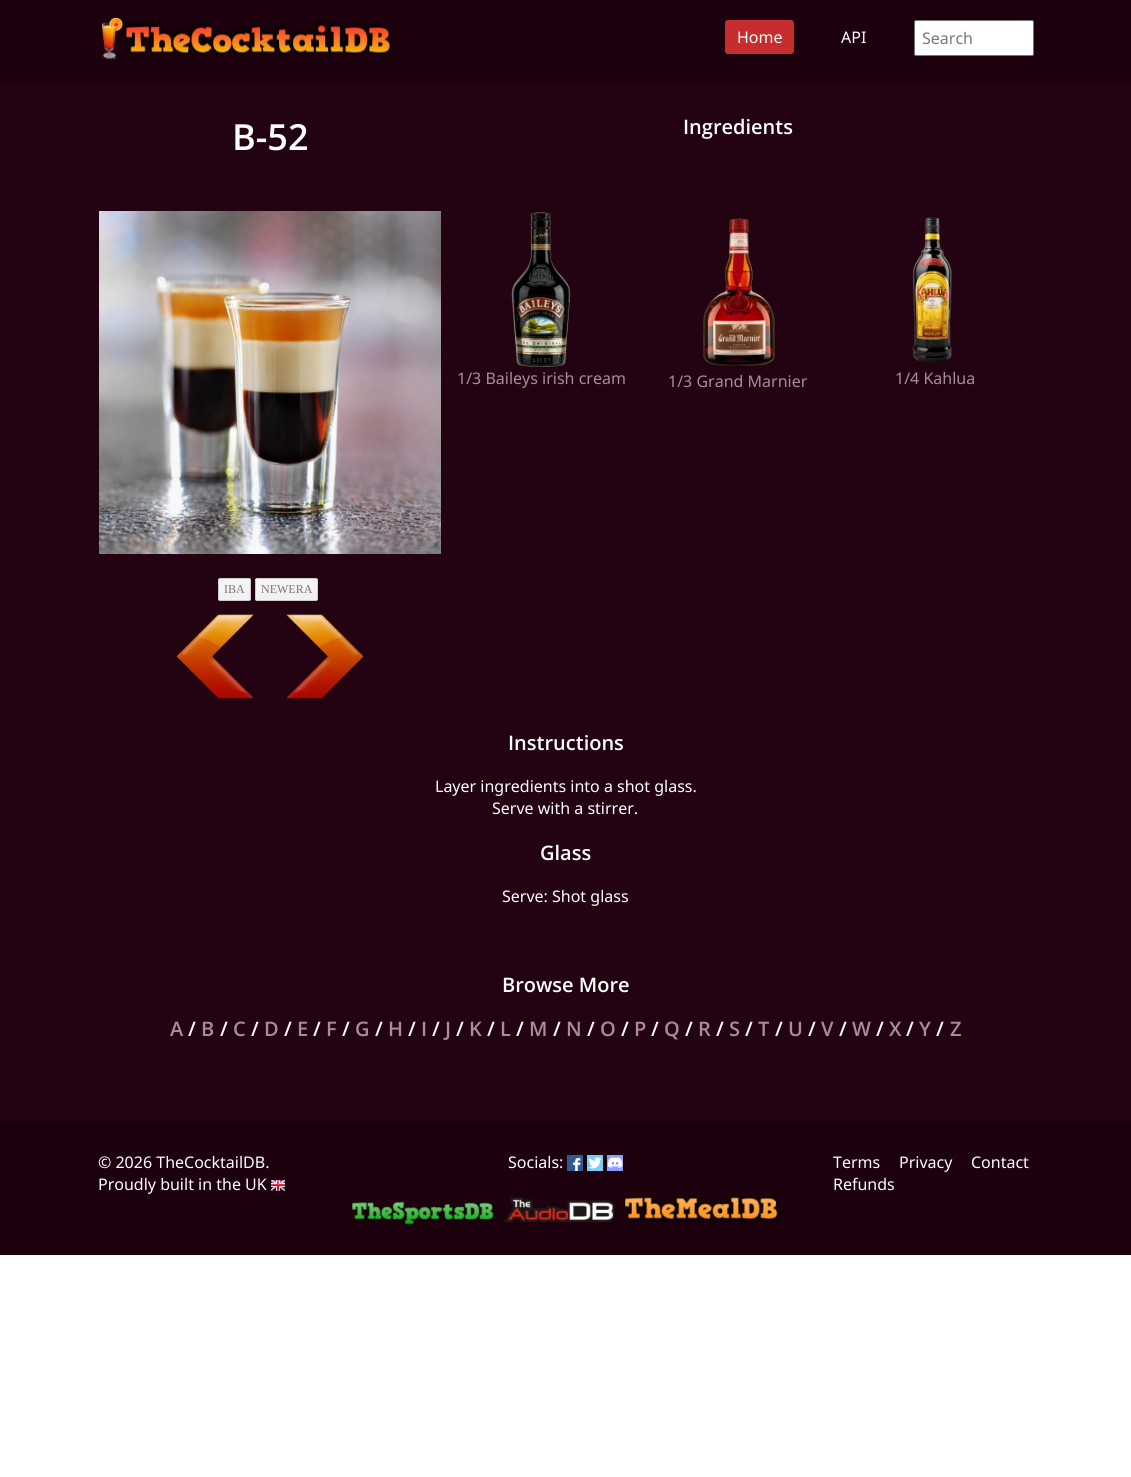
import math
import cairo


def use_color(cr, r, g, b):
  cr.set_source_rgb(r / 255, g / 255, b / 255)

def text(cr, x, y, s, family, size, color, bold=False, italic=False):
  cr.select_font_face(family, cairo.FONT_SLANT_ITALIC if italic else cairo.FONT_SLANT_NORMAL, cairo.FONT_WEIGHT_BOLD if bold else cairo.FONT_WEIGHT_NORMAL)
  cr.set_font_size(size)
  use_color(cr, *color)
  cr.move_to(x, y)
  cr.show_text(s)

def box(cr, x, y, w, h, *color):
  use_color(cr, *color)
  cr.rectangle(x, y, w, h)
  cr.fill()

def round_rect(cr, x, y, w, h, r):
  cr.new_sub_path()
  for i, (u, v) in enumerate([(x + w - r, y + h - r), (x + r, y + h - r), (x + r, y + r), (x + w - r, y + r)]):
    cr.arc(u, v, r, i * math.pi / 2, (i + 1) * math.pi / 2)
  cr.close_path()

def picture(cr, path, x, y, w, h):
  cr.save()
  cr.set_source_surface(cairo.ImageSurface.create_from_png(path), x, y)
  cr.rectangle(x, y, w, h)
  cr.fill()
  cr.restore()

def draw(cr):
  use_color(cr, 255, 255, 255)
  cr.paint()
  box(cr, 0, 0, 1131, 84, 29, 0, 13)
  picture(cr, "img_01.png", 101, 17, 290, 43)
  use_color(cr, 197, 45, 47)
  round_rect(cr, 725, 20, 69, 34, 3)
  cr.fill()
  use_color(cr, 255, 255, 255)
  round_rect(cr, 914.5, 20.5, 119, 35, 1.5)
  cr.fill_preserve()
  use_color(cr, 118, 118, 118)
  cr.set_line_width(1)
  cr.stroke()
  box(cr, 0, 84, 1131, 1037, 35, 3, 18)
  picture(cr, "img_02.png", 511, 212, 60, 155)
  picture(cr, "img_03.png", 703, 218, 72, 148)
  picture(cr, "img_04.png", 912, 217, 40, 146)
  picture(cr, "img_05.png", 99, 211, 342, 343)
  cr.save()
  round_rect(cr, 218, 578, 33, 23, 2)
  cr.clip()
  gradient = cairo.LinearGradient(219, 587, 219, 594)
  gradient.add_color_stop_rgba(0, 0.961, 0.961, 0.961, 1)
  gradient.add_color_stop_rgba(1, 0.945, 0.945, 0.945, 1)
  cr.set_source(gradient)
  cr.rectangle(218, 579, 33, 21)
  cr.fill()
  cr.restore()
  round_rect(cr, 218.5, 578.5, 32, 22, 1.5)
  use_color(cr, 204, 204, 204)
  cr.stroke()
  cr.save()
  round_rect(cr, 255, 578, 63, 23, 2)
  cr.clip()
  gradient = cairo.LinearGradient(256, 587, 256, 594)
  gradient.add_color_stop_rgba(0, 0.961, 0.961, 0.961, 1)
  gradient.add_color_stop_rgba(1, 0.945, 0.945, 0.945, 1)
  cr.set_source(gradient)
  cr.rectangle(255, 579, 63, 21)
  cr.fill()
  cr.restore()
  round_rect(cr, 255.5, 578.5, 62, 22, 1.5)
  cr.stroke()
  picture(cr, "img_06.png", 176, 614, 78, 85)
  picture(cr, "img_07.png", 286, 614, 78, 85)
  box(cr, 0, 1121, 1131, 134, 29, 0, 13)
  picture(cr, "img_08.png", 271, 1180, 14, 12)
  picture(cr, "img_09.png", 567, 1155, 16, 16)
  picture(cr, "img_10.png", 587, 1155, 16, 16)
  picture(cr, "img_11.png", 607, 1155, 16, 16)
  picture(cr, "img_12.png", 351, 1201, 144, 24)
  picture(cr, "img_13.png", 503, 1197, 112, 26)
  picture(cr, "img_14.png", 623, 1196, 158, 27)
  text(cr, 737, 43, "Home", "Noto Sans", 16, (255, 255, 255))
  text(cr, 841, 43, "API", "Noto Sans", 16, (255, 255, 255))
  text(cr, 922, 44, "Search", "Noto Sans", 16, (119, 119, 119))
  text(cr, 232, 150, "B-52", "Open Sans SemiBold", 36, (255, 255, 255))
  text(cr, 683, 134, "Ingredients", "Open Sans SemiBold", 20, (255, 255, 255))
  text(cr, 457, 384, "1/3 Baileys irish cream", "Noto Sans", 16, (167, 141, 155))
  text(cr, 668, 387, "1/3 Grand Marnier", "Noto Sans", 16, (167, 141, 155))
  text(cr, 895, 384, "1/4 Kahlua", "Noto Sans", 16, (167, 141, 155))
  text(cr, 224, 593, "IBA", "Liberation Serif", 12, (119, 119, 119))
  text(cr, 261, 593, "NEWERA", "Liberation Serif", 12, (119, 119, 119))
  text(cr, 508, 750, "Instructions", "Open Sans SemiBold", 20, (255, 255, 255))
  text(cr, 435, 792, "Layer ingredients into a shot glass.", "Noto Sans", 16, (255, 255, 255))
  text(cr, 492, 814, "Serve with a stirrer.", "Noto Sans", 16, (255, 255, 255))
  text(cr, 540, 860, "Glass", "Open Sans SemiBold", 20, (255, 255, 255))
  text(cr, 502, 902, "Serve: Shot glass", "Noto Sans", 16, (255, 255, 255))
  text(cr, 502, 992, "Browse More", "Open Sans SemiBold", 20, (255, 255, 255))
  text(cr, 170, 1036, "A", "Open Sans SemiBold", 20, (167, 141, 155))
  text(cr, 188, 1036, "/", "Open Sans SemiBold", 20, (255, 255, 255))
  text(cr, 201, 1036, "B", "Open Sans SemiBold", 20, (167, 141, 155))
  text(cr, 220, 1036, "/", "Open Sans SemiBold", 20, (255, 255, 255))
  text(cr, 233, 1036, "C", "Open Sans SemiBold", 20, (167, 141, 155))
  text(cr, 251, 1036, "/", "Open Sans SemiBold", 20, (255, 255, 255))
  text(cr, 264, 1036, "D", "Open Sans SemiBold", 20, (167, 141, 155))
  text(cr, 284, 1036, "/", "Open Sans SemiBold", 20, (255, 255, 255))
  text(cr, 297, 1036, "E", "Open Sans SemiBold", 20, (167, 141, 155))
  text(cr, 313, 1036, "/", "Open Sans SemiBold", 20, (255, 255, 255))
  text(cr, 326, 1036, "F", "Open Sans SemiBold", 20, (167, 141, 155))
  text(cr, 342, 1036, "/", "Open Sans SemiBold", 20, (255, 255, 255))
  text(cr, 355, 1036, "G", "Open Sans SemiBold", 20, (167, 141, 155))
  text(cr, 375, 1036, "/", "Open Sans SemiBold", 20, (255, 255, 255))
  text(cr, 388, 1036, "H", "Open Sans SemiBold", 20, (167, 141, 155))
  text(cr, 408, 1036, "/", "Open Sans SemiBold", 20, (255, 255, 255))
  text(cr, 421, 1036, "I", "Open Sans SemiBold", 20, (167, 141, 155))
  text(cr, 432, 1036, "/", "Open Sans SemiBold", 20, (255, 255, 255))
  text(cr, 445, 1036, "J", "Open Sans SemiBold", 20, (167, 141, 155))
  text(cr, 456, 1036, "/", "Open Sans SemiBold", 20, (255, 255, 255))
  text(cr, 469, 1036, "K", "Open Sans SemiBold", 20, (167, 141, 155))
  text(cr, 487, 1036, "/", "Open Sans SemiBold", 20, (255, 255, 255))
  text(cr, 500, 1036, "L", "Open Sans SemiBold", 20, (167, 141, 155))
  text(cr, 516, 1036, "/", "Open Sans SemiBold", 20, (255, 255, 255))
  text(cr, 529, 1036, "M", "Open Sans SemiBold", 20, (167, 141, 155))
  text(cr, 553, 1036, "/", "Open Sans SemiBold", 20, (255, 255, 255))
  text(cr, 566, 1036, "N", "Open Sans SemiBold", 20, (167, 141, 155))
  text(cr, 587, 1036, "/", "Open Sans SemiBold", 20, (255, 255, 255))
  text(cr, 600, 1036, "O", "Open Sans SemiBold", 20, (167, 141, 155))
  text(cr, 621, 1036, "/", "Open Sans SemiBold", 20, (255, 255, 255))
  text(cr, 634, 1036, "P", "Open Sans SemiBold", 20, (167, 141, 155))
  text(cr, 651, 1036, "/", "Open Sans SemiBold", 20, (255, 255, 255))
  text(cr, 664, 1036, "Q", "Open Sans SemiBold", 20, (167, 141, 155))
  text(cr, 685, 1036, "/", "Open Sans SemiBold", 20, (255, 255, 255))
  text(cr, 698, 1036, "R", "Open Sans SemiBold", 20, (167, 141, 155))
  text(cr, 716, 1036, "/", "Open Sans SemiBold", 20, (255, 255, 255))
  text(cr, 729, 1036, "S", "Open Sans SemiBold", 20, (167, 141, 155))
  text(cr, 745, 1036, "/", "Open Sans SemiBold", 20, (255, 255, 255))
  text(cr, 758, 1036, "T", "Open Sans SemiBold", 20, (167, 141, 155))
  text(cr, 775, 1036, "/", "Open Sans SemiBold", 20, (255, 255, 255))
  text(cr, 788, 1036, "U", "Open Sans SemiBold", 20, (167, 141, 155))
  text(cr, 808, 1036, "/", "Open Sans SemiBold", 20, (255, 255, 255))
  text(cr, 821, 1036, "V", "Open Sans SemiBold", 20, (167, 141, 155))
  text(cr, 839, 1036, "/", "Open Sans SemiBold", 20, (255, 255, 255))
  text(cr, 852, 1036, "W", "Open Sans SemiBold", 20, (167, 141, 155))
  text(cr, 876, 1036, "/", "Open Sans SemiBold", 20, (255, 255, 255))
  text(cr, 889, 1036, "X", "Open Sans SemiBold", 20, (167, 141, 155))
  text(cr, 906, 1036, "/", "Open Sans SemiBold", 20, (255, 255, 255))
  text(cr, 919, 1036, "Y", "Open Sans SemiBold", 20, (167, 141, 155))
  text(cr, 936, 1036, "/", "Open Sans SemiBold", 20, (255, 255, 255))
  text(cr, 950, 1036, "Z", "Open Sans SemiBold", 20, (167, 141, 155))
  text(cr, 98, 1168, "© 2026 TheCocktailDB.", "Noto Sans", 16, (255, 255, 255))
  text(cr, 98, 1190, "Proudly built in the UK", "Noto Sans", 16, (255, 255, 255))
  text(cr, 508, 1168, "Socials:", "Noto Sans", 16, (255, 255, 255))
  text(cr, 833, 1168, "Terms", "Noto Sans", 16, (255, 255, 255))
  text(cr, 899, 1168, "Privacy", "Noto Sans", 16, (255, 255, 255))
  text(cr, 971, 1168, "Contact", "Noto Sans", 16, (255, 255, 255))
  text(cr, 833, 1190, "Refunds", "Noto Sans", 16, (255, 255, 255))


surface = cairo.ImageSurface(cairo.FORMAT_RGB24, 1131, 1477)
cr = cairo.Context(surface)
options = cairo.FontOptions()
options.set_hint_metrics(cairo.HINT_METRICS_OFF)
options.set_hint_style(cairo.HINT_STYLE_NONE)
cr.set_font_options(options)
cr.set_miter_limit(4)
draw(cr)
surface.write_to_png("out.png")
